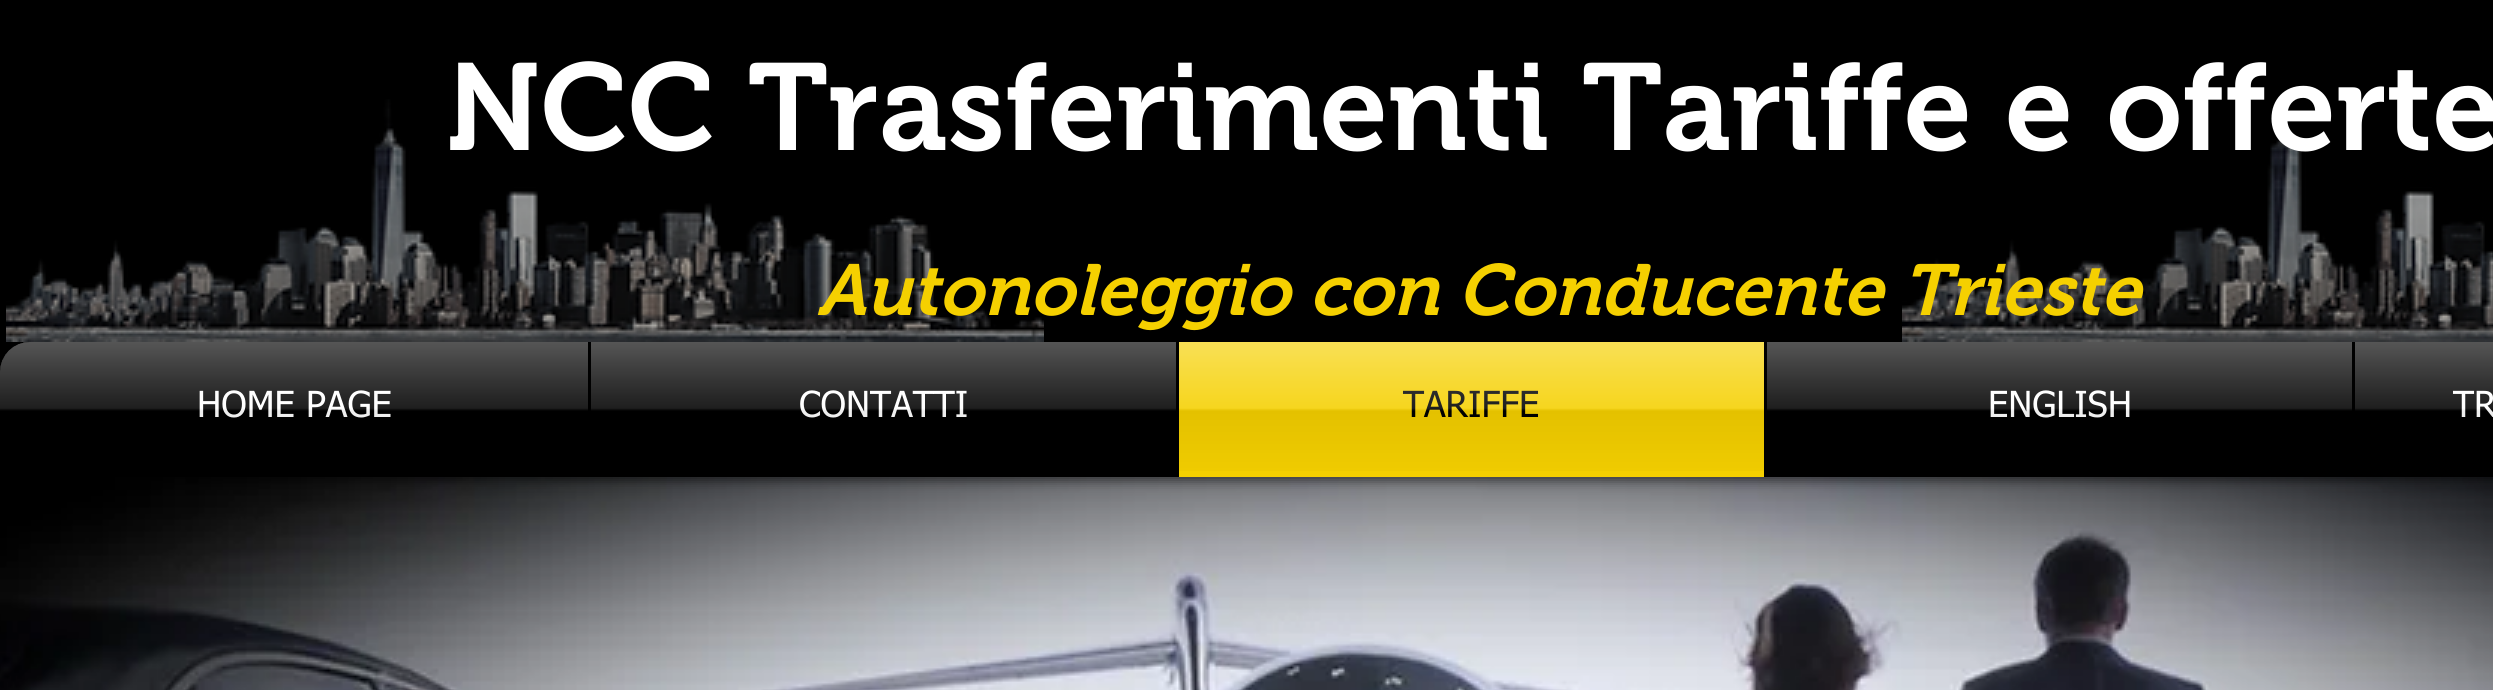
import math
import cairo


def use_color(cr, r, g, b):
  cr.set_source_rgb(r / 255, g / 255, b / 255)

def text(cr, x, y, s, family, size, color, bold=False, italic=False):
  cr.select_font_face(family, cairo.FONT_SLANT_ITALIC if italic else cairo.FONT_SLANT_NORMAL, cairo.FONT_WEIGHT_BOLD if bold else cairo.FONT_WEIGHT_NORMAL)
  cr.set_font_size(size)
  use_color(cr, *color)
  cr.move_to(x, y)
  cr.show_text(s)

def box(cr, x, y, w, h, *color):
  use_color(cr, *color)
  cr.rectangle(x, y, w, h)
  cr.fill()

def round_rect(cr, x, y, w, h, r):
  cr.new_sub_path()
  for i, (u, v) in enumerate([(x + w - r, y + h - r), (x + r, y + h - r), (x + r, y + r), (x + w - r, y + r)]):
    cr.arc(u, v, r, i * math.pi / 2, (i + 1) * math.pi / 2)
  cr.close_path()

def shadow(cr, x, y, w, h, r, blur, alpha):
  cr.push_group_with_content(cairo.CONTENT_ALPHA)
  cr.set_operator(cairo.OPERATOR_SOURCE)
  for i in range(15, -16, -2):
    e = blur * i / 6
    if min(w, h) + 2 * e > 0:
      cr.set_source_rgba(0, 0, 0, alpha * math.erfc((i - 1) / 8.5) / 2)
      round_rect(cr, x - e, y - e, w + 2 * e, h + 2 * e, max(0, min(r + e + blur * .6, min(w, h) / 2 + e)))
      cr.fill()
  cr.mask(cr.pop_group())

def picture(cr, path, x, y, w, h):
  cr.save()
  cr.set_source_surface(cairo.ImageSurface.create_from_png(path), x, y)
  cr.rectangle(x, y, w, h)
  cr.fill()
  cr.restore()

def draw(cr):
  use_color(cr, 0, 0, 0)
  cr.paint()
  picture(cr, "img_01.png", 0, 477, 2493, 213)
  picture(cr, "img_02.png", 6, 99, 1038, 243)
  picture(cr, "img_03.png", 1902, 99, 591, 243)
  shadow(cr, 0, 345, 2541, 135, 30, 6, 0.6)
  picture(cr, "img_04.png", 0, 342, 30, 30)
  use_color(cr, 0, 0, 0)
  cr.new_path()
  cr.move_to(30, 342)
  cr.line_to(588, 342)
  cr.line_to(588, 477)
  cr.line_to(0, 477)
  cr.line_to(0, 372)
  cr.curve_to(0, 355.5, 13.5, 342, 30, 342)
  cr.close_path()
  cr.fill()
  box(cr, 1179, 342, 585, 135, 245, 208, 0)
  text(cr, 446, 150, "NCC Trasferimenti Tariffe e offerte", "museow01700 SemiBold", 123, (255, 255, 255))
  text(cr, 817, 315, "Autonoleggio con Conducente Trieste", "museow01700 SemiBold", 72, (245, 208, 0), italic=True)
  text(cr, 197, 417, "HOME PAGE", "tahoma", 36, (255, 255, 255))
  picture(cr, "img_05.png", 0, 342, 588, 76)
  text(cr, 799, 417, "CONTATTI", "tahoma", 36, (255, 255, 255))
  picture(cr, "img_06.png", 591, 342, 585, 76)
  text(cr, 1403, 417, "TARIFFE", "tahoma", 36, (0, 0, 0))
  picture(cr, "img_07.png", 1179, 342, 585, 129)
  text(cr, 1988, 417, "ENGLISH", "tahoma", 36, (255, 255, 255))
  picture(cr, "img_08.png", 1767, 342, 585, 76)
  text(cr, 2453, 417, "TR", "tahoma", 36, (255, 255, 255))
  picture(cr, "img_09.png", 2355, 342, 138, 75)


surface = cairo.ImageSurface(cairo.FORMAT_RGB24, 2493, 690)
cr = cairo.Context(surface)
options = cairo.FontOptions()
options.set_hint_metrics(cairo.HINT_METRICS_OFF)
options.set_hint_style(cairo.HINT_STYLE_NONE)
cr.set_font_options(options)
cr.set_miter_limit(4)
draw(cr)
surface.write_to_png("out.png")
